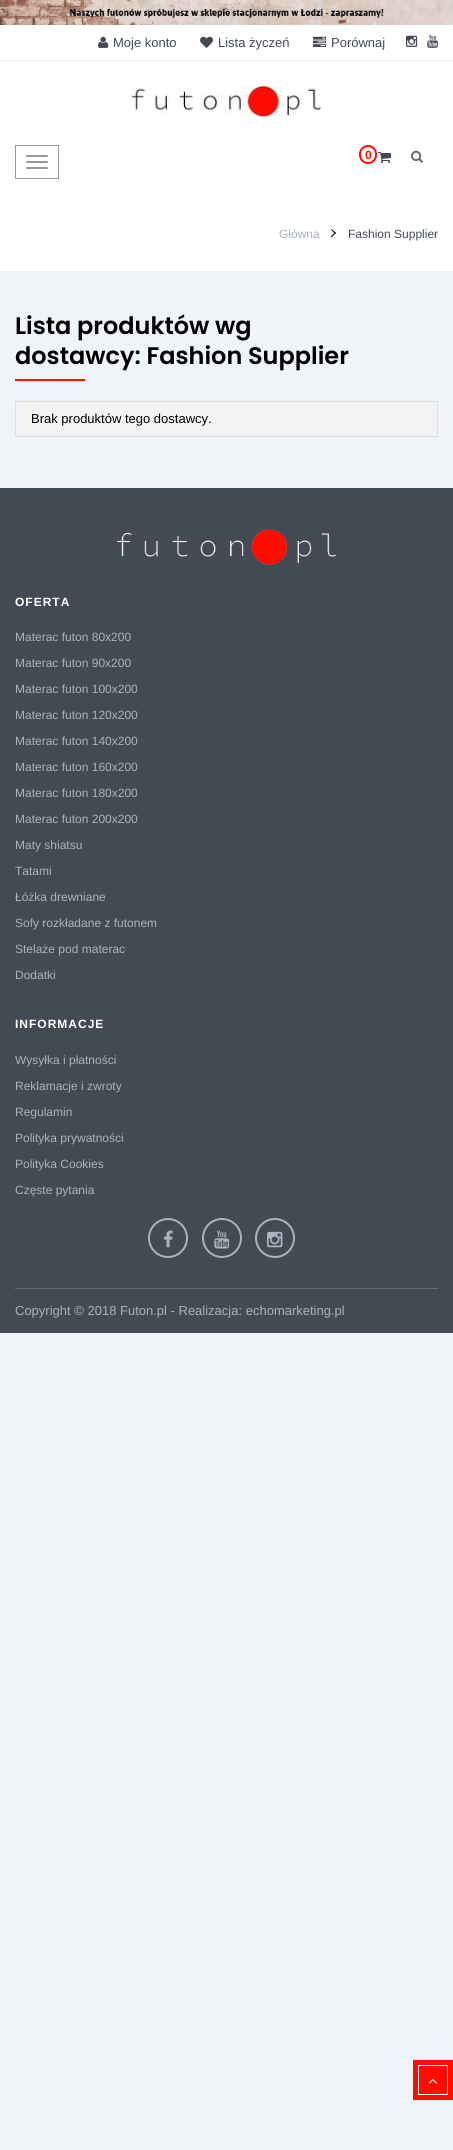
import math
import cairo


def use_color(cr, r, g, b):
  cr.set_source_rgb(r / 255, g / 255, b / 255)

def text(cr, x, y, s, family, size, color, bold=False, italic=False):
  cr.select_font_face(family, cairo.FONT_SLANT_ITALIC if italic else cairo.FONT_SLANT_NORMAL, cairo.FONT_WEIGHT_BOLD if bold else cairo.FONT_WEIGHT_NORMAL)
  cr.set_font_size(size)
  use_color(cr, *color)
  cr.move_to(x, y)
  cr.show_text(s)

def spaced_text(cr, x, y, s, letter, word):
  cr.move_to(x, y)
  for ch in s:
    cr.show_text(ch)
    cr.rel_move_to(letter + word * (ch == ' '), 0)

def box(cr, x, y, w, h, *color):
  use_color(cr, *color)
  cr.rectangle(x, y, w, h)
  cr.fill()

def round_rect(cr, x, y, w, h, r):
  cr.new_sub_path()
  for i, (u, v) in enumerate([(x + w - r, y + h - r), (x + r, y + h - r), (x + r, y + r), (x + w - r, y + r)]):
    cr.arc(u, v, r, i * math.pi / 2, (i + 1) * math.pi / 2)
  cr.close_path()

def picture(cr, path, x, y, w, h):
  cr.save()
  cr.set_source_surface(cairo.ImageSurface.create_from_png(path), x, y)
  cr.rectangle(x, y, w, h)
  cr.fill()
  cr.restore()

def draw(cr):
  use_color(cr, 240, 243, 248)
  cr.paint()
  picture(cr, "img_01.png", 0, 0, 453, 25)
  box(cr, 0, 25, 453, 246, 255, 255, 255)
  box(cr, 0, 60, 453, 1, 238, 238, 238)
  picture(cr, "img_02.png", 98, 36, 11, 12)
  picture(cr, "img_03.png", 200, 36, 13, 12)
  picture(cr, "img_04.png", 313, 36, 13, 11)
  picture(cr, "img_05.png", 406, 35, 12, 12)
  picture(cr, "img_06.png", 427, 34, 11, 14)
  picture(cr, "img_07.png", 132, 86, 189, 31)
  cr.rectangle(15.5, 145.5, 43, 33)
  use_color(cr, 153, 153, 153)
  cr.set_line_width(1)
  cr.stroke()
  round_rect(cr, 26, 155, 22, 2, 1)
  cr.fill()
  round_rect(cr, 26, 161, 22, 2, 1)
  cr.fill()
  round_rect(cr, 26, 167, 22, 2, 1)
  cr.fill()
  round_rect(cr, 360, 146, 16, 17, 8)
  use_color(cr, 255, 13, 1)
  cr.set_line_width(2)
  cr.stroke()
  picture(cr, "img_08.png", 378, 152, 13, 11)
  picture(cr, "img_09.png", 411, 150, 12, 13)
  use_color(cr, 0, 0, 0)
  cr.new_path()
  cr.move_to(331.5, 229)
  cr.line_to(336, 233)
  cr.line_to(335, 234)
  cr.line_to(331, 229.5)
  cr.close_path()
  cr.fill()
  cr.new_path()
  cr.move_to(335, 232.5)
  cr.line_to(336, 233)
  cr.line_to(331.5, 237.5)
  cr.line_to(331, 236.5)
  cr.close_path()
  cr.fill()
  box(cr, 15, 379, 70, 2, 255, 13, 1)
  use_color(cr, 243, 243, 243)
  cr.rectangle(15.5, 401.5, 422, 35)
  cr.fill_preserve()
  use_color(cr, 222, 222, 222)
  cr.set_line_width(1)
  cr.stroke()
  box(cr, 0, 488, 453, 845, 67, 74, 84)
  box(cr, 15, 1288, 423, 1, 98, 105, 116)
  picture(cr, "img_10.png", 117, 529, 219, 36)
  cr.arc(168, 1238, 19, 0, 2 * math.pi)
  use_color(cr, 170, 178, 189)
  cr.set_line_width(2)
  cr.stroke()
  picture(cr, "img_11.png", 163, 1230, 10, 18)
  cr.arc(222, 1238, 19, 0, 2 * math.pi)
  cr.stroke()
  picture(cr, "img_12.png", 214, 1230, 16, 19)
  cr.arc(275, 1238, 19, 0, 2 * math.pi)
  cr.stroke()
  picture(cr, "img_13.png", 267, 1231, 16, 17)
  box(cr, 413, 2060, 40, 40, 255, 13, 1)
  cr.rectangle(418.5, 2065.5, 29, 29)
  use_color(cr, 255, 255, 255)
  cr.set_line_width(1)
  cr.stroke()
  picture(cr, "img_14.png", 428, 2078, 9, 6)
  text(cr, 113, 47, "Moje konto", "Liberation Sans", 13, (67, 74, 84))
  text(cr, 218, 47, "Lista życzeń", "Liberation Sans", 13, (67, 74, 84))
  text(cr, 331, 47, "Porównaj", "Liberation Sans", 13, (67, 74, 84))
  text(cr, 365, 159, "0", "Liberation Sans", 12, (255, 13, 1), bold=True)
  text(cr, 279, 238, "Główna", "Liberation Sans", 12, (170, 178, 189))
  text(cr, 348, 238, "Fashion Supplier", "Liberation Sans", 12, (67, 74, 84))
  text(cr, 15, 334, "Lista produktów wg", "Poppins SemiBold", 24, (0, 0, 0))
  text(cr, 15, 364, "dostawcy: Fashion Supplier", "Poppins SemiBold", 24, (0, 0, 0))
  text(cr, 31, 423, "Brak produktów tego dostawcy.", "Liberation Sans", 13, (0, 0, 0))
  cr.select_font_face("Liberation Sans", cairo.FONT_SLANT_NORMAL, cairo.FONT_WEIGHT_BOLD)
  cr.set_font_size(12)
  use_color(cr, 255, 255, 255)
  spaced_text(cr, 15, 606, "OFERTA", 1, 0)
  text(cr, 15, 641, "Materac futon 80x200", "Liberation Sans", 12, (170, 178, 189))
  text(cr, 15, 667, "Materac futon 90x200", "Liberation Sans", 12, (170, 178, 189))
  text(cr, 15, 693, "Materac futon 100x200", "Liberation Sans", 12, (170, 178, 189))
  text(cr, 15, 719, "Materac futon 120x200", "Liberation Sans", 12, (170, 178, 189))
  text(cr, 15, 745, "Materac futon 140x200", "Liberation Sans", 12, (170, 178, 189))
  text(cr, 15, 771, "Materac futon 160x200", "Liberation Sans", 12, (170, 178, 189))
  text(cr, 15, 797, "Materac futon 180x200", "Liberation Sans", 12, (170, 178, 189))
  text(cr, 15, 823, "Materac futon 200x200", "Liberation Sans", 12, (170, 178, 189))
  text(cr, 15, 849, "Maty shiatsu", "Liberation Sans", 12, (170, 178, 189))
  text(cr, 15, 875, "Tatami", "Liberation Sans", 12, (170, 178, 189))
  text(cr, 15, 901, "Łóżka drewniane", "Liberation Sans", 12, (170, 178, 189))
  text(cr, 15, 927, "Sofy rozkładane z futonem", "Liberation Sans", 12, (170, 178, 189))
  text(cr, 15, 953, "Stelaże pod materac", "Liberation Sans", 12, (170, 178, 189))
  text(cr, 15, 979, "Dodatki", "Liberation Sans", 12, (170, 178, 189))
  cr.select_font_face("Liberation Sans", cairo.FONT_SLANT_NORMAL, cairo.FONT_WEIGHT_BOLD)
  use_color(cr, 255, 255, 255)
  spaced_text(cr, 15, 1028, "INFORMACJE", 1, 0)
  text(cr, 15, 1064, "Wysyłka i płatności", "Liberation Sans", 12, (170, 178, 189))
  text(cr, 15, 1090, "Reklamacje i zwroty", "Liberation Sans", 12, (170, 178, 189))
  text(cr, 15, 1116, "Regulamin", "Liberation Sans", 12, (170, 178, 189))
  text(cr, 15, 1142, "Polityka prywatności", "Liberation Sans", 12, (170, 178, 189))
  text(cr, 15, 1168, "Polityka Cookies", "Liberation Sans", 12, (170, 178, 189))
  text(cr, 15, 1194, "Częste pytania", "Liberation Sans", 12, (170, 178, 189))
  text(cr, 15, 1315, "Copyright © 2018 Futon.pl - Realizacja: echomarketing.pl", "Liberation Sans", 13, (170, 178, 189))


surface = cairo.ImageSurface(cairo.FORMAT_RGB24, 453, 2150)
cr = cairo.Context(surface)
options = cairo.FontOptions()
options.set_hint_metrics(cairo.HINT_METRICS_OFF)
options.set_hint_style(cairo.HINT_STYLE_NONE)
cr.set_font_options(options)
cr.set_miter_limit(4)
draw(cr)
surface.write_to_png("out.png")
